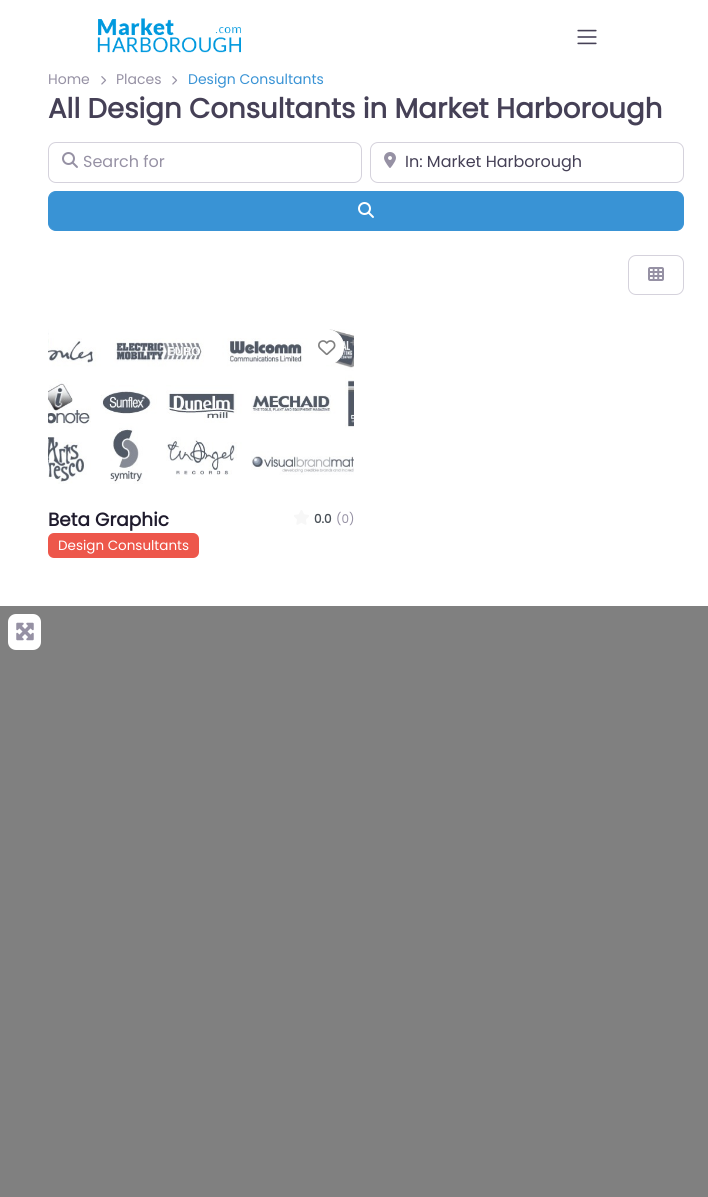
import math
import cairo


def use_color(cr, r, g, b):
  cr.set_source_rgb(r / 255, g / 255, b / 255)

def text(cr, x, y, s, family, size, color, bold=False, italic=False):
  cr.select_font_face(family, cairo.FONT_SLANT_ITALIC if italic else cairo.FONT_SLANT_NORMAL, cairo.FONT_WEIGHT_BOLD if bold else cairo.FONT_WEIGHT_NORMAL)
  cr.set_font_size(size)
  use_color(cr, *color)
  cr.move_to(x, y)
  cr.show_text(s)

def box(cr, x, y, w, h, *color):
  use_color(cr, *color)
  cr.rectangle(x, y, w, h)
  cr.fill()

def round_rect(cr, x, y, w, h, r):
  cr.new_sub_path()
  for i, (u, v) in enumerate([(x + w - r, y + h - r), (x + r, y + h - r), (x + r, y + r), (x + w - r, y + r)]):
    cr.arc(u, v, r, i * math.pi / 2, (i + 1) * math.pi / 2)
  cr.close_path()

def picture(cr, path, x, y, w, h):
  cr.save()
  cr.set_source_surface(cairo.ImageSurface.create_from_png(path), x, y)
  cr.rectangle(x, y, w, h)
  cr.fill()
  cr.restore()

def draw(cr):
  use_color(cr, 255, 255, 255)
  cr.paint()
  picture(cr, "img_01.png", 97, 18, 144, 35)
  picture(cr, "img_02.png", 577, 29, 20, 16)
  picture(cr, "img_03.png", 101, 76, 6, 9)
  picture(cr, "img_03.png", 172, 76, 6, 9)
  round_rect(cr, 48.5, 142.5, 313, 40, 7.5)
  use_color(cr, 213, 210, 220)
  cr.set_line_width(1)
  cr.stroke()
  picture(cr, "img_04.png", 62, 152, 16, 16)
  round_rect(cr, 370.5, 142.5, 313, 40, 7.5)
  cr.stroke()
  picture(cr, "img_05.png", 384, 152, 12, 16)
  use_color(cr, 57, 147, 213)
  round_rect(cr, 48.5, 191.5, 635, 39, 7.5)
  cr.fill_preserve()
  cr.stroke()
  picture(cr, "img_06.png", 358, 202, 16, 16)
  round_rect(cr, 628.5, 255.5, 55, 39, 7.5)
  use_color(cr, 213, 210, 220)
  cr.stroke()
  picture(cr, "img_07.png", 648, 267, 16, 14)
  picture(cr, "img_08.png", 48, 329, 306, 155)
  use_color(cr, 255, 255, 255)
  round_rect(cr, 309.5, 329.5, 34, 35, 17)
  cr.fill_preserve()
  cr.stroke()
  picture(cr, "img_09.png", 318, 340, 18, 16)
  picture(cr, "img_10.png", 294, 510, 15, 15)
  use_color(cr, 237, 87, 75)
  round_rect(cr, 48, 533, 151, 25, 6)
  cr.fill()
  box(cr, 0, 606, 708, 591, 128, 128, 128)
  use_color(cr, 255, 255, 255)
  round_rect(cr, 8, 614, 33, 36, 8)
  cr.fill()
  picture(cr, "img_11.png", 16, 622, 18, 19)
  text(cr, 48, 84, "Home", "Poppins", 14, (150, 145, 164))
  text(cr, 116, 84, "Places", "Poppins", 14, (150, 145, 164))
  text(cr, 188, 84, "Design Consultants", "Poppins", 14, (57, 147, 213))
  text(cr, 48, 118, "All Design Consultants in Market Harborough", "Poppins", 27.6, (69, 64, 86), bold=True)
  text(cr, 83, 167, "Search for", "Poppins", 16, (150, 145, 164))
  text(cr, 405, 167, "In: Market Harborough", "Poppins", 16, (69, 64, 86))
  text(cr, 48, 526, "Beta Graphic", "Poppins", 18.5, (31, 27, 45), bold=True)
  text(cr, 314, 523, "0.0", "Poppins", 12, (73, 80, 87), bold=True)
  text(cr, 336, 523, "(0)", "Poppins", 12, (150, 145, 164))
  text(cr, 58, 550, "Design Consultants", "Poppins", 13.5, (255, 255, 255))


surface = cairo.ImageSurface(cairo.FORMAT_RGB24, 708, 1197)
cr = cairo.Context(surface)
options = cairo.FontOptions()
options.set_hint_metrics(cairo.HINT_METRICS_OFF)
options.set_hint_style(cairo.HINT_STYLE_NONE)
cr.set_font_options(options)
cr.set_miter_limit(4)
draw(cr)
surface.write_to_png("out.png")
